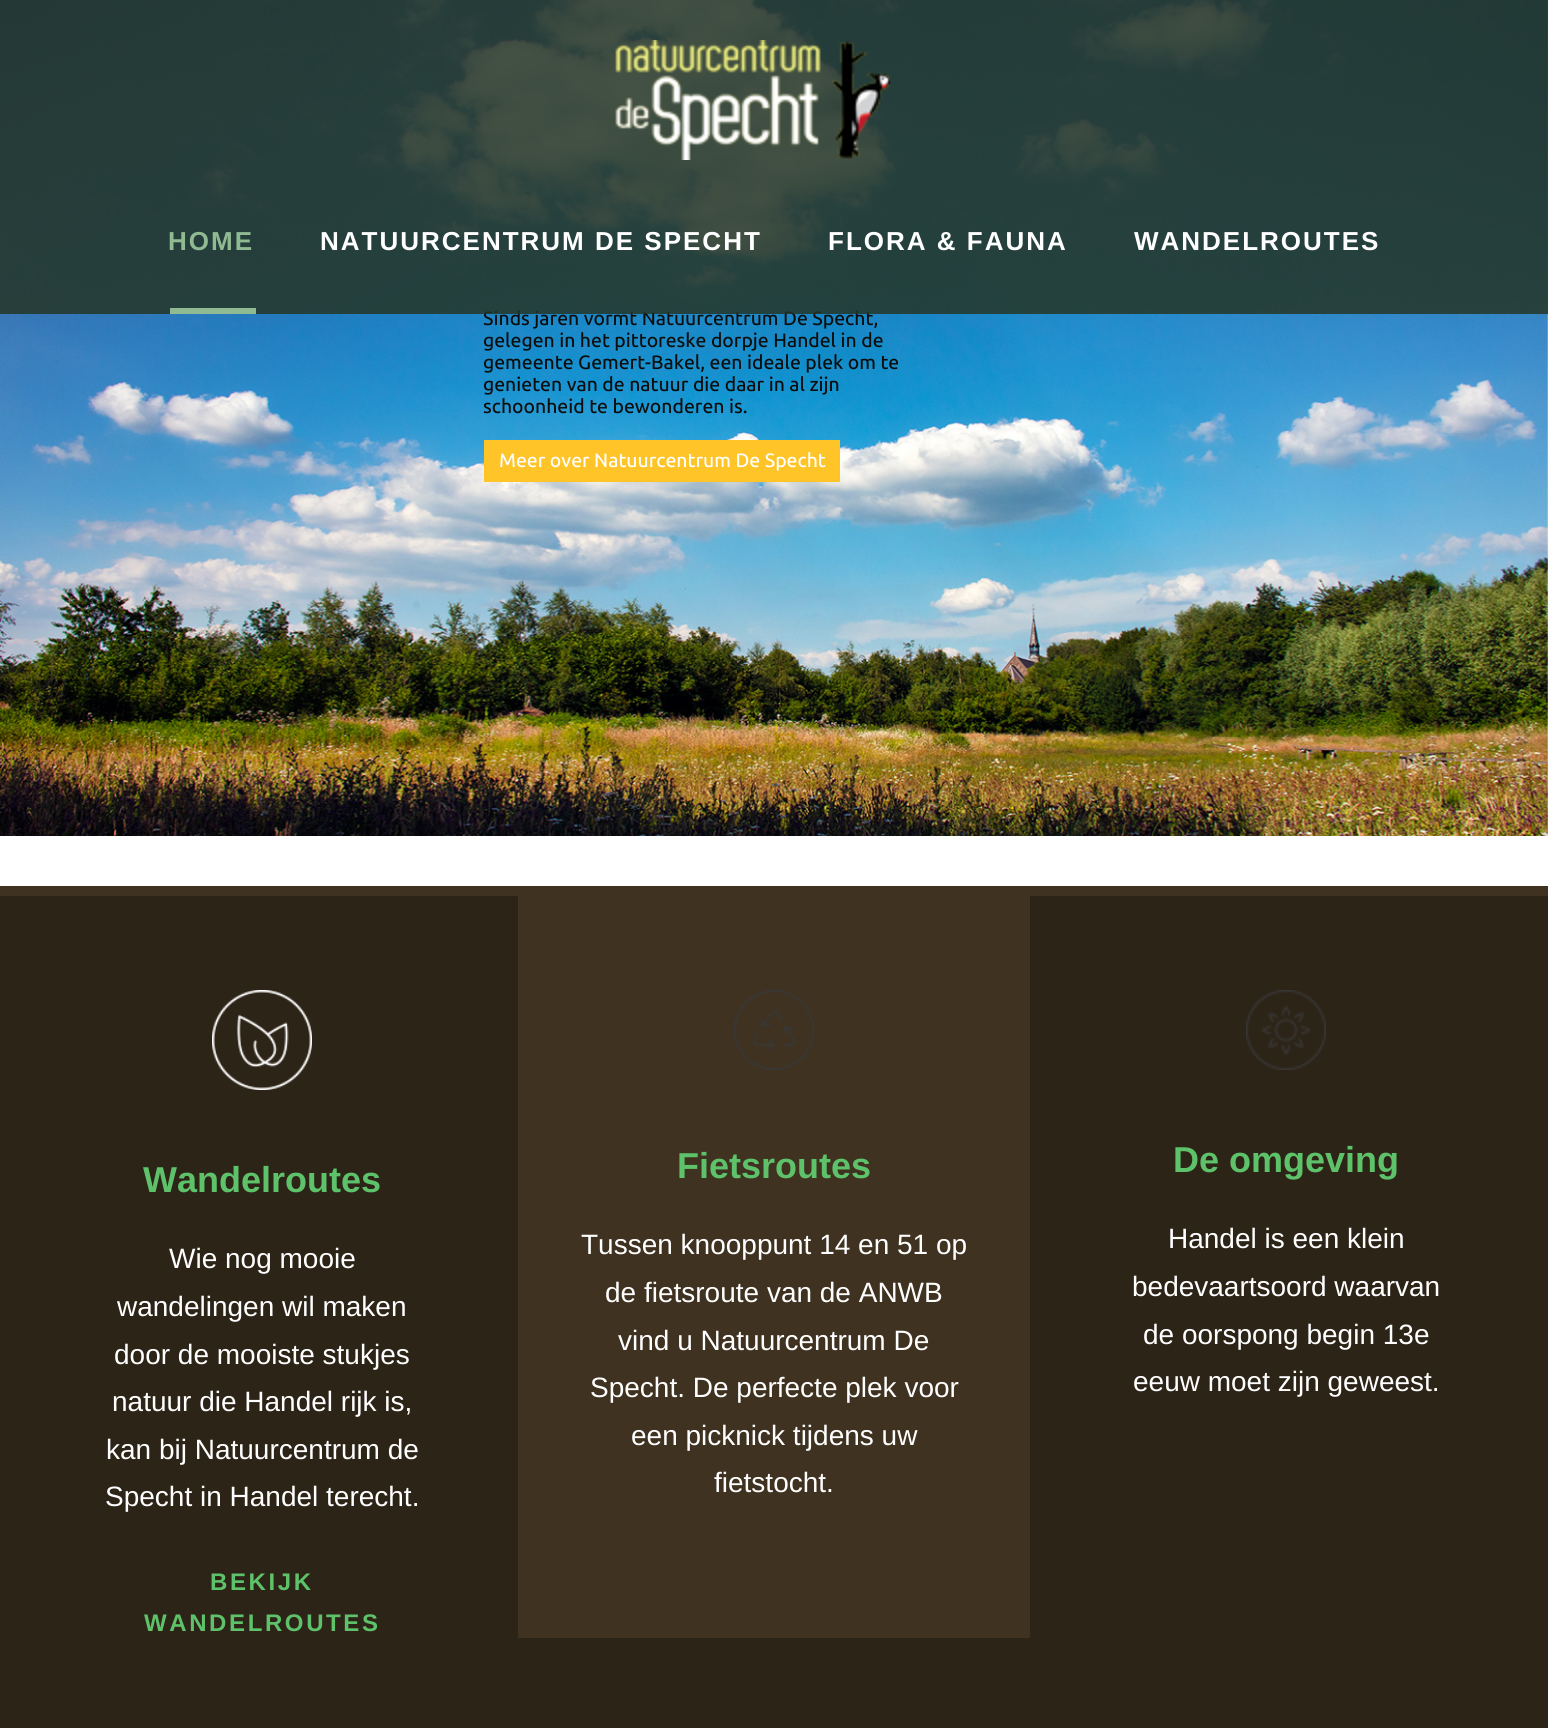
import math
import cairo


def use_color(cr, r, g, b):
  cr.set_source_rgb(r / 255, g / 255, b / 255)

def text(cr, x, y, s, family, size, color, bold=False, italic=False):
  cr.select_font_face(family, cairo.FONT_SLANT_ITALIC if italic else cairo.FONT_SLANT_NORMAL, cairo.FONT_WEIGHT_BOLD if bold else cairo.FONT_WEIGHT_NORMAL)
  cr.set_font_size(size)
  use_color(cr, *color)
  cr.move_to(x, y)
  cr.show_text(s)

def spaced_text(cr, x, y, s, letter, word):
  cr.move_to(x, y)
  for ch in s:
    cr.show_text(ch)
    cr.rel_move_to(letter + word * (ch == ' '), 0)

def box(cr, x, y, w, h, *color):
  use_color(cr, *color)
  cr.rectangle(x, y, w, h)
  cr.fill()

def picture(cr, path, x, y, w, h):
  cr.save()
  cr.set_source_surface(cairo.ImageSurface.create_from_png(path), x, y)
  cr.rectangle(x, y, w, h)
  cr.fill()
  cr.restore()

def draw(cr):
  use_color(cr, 255, 255, 255)
  cr.paint()
  picture(cr, "img_02.png", 0, 0, 1548, 836)
  box(cr, 484, 440, 356, 42, 254, 196, 40)
  box(cr, 0, 896, 1548, 832, 45, 36, 24)
  box(cr, 0, 886, 1548, 10, 63, 50, 33)
  picture(cr, "img_03.png", 212, 990, 100, 100)
  box(cr, 518, 896, 512, 742, 63, 50, 33)
  picture(cr, "img_04.png", 734, 990, 80, 80)
  picture(cr, "img_05.png", 1246, 990, 80, 80)
  text(cr, 483, 325, "Sinds jaren vormt Natuurcentrum De Specht,", "Ubuntu Medium", 19.35, (13, 13, 13))
  cr.set_source_rgba(0.145, 0.208, 0.149, 0.85)
  cr.rectangle(0, 0, 1548, 314)
  cr.fill()
  box(cr, 170, 308, 86, 6, 144, 186, 146)
  cr.select_font_face("Liberation Sans", cairo.FONT_SLANT_NORMAL, cairo.FONT_WEIGHT_BOLD)
  cr.set_font_size(26)
  use_color(cr, 255, 255, 255)
  spaced_text(cr, 1134, 250, "WANDELROUTES", 2, 0)
  spaced_text(cr, 828, 250, "FLORA & FAUNA", 2, 0)
  spaced_text(cr, 320, 250, "NATUURCENTRUM DE SPECHT", 2, 0)
  use_color(cr, 144, 186, 146)
  spaced_text(cr, 168, 250, "HOME", 2, 0)
  picture(cr, "img_01.png", 615, 40, 276, 120)
  text(cr, 483, 347, "gelegen in het pittoreske dorpje Handel in de", "Ubuntu Medium", 19.35, (13, 13, 13))
  text(cr, 483, 369, "gemeente Gemert-Bakel, een ideale plek om te", "Ubuntu Medium", 19.35, (13, 13, 13))
  text(cr, 483, 391, "genieten van de natuur die daar in al zijn", "Ubuntu Medium", 19.35, (13, 13, 13))
  text(cr, 483, 413, "schoonheid te bewonderen is.", "Ubuntu Medium", 19.35, (13, 13, 13))
  text(cr, 499, 467, "Meer over Natuurcentrum De Specht", "Ubuntu Medium", 19.35, (255, 255, 255))
  text(cr, 143, 1192, "Wandelroutes", "Liberation Sans", 36, (93, 194, 105), bold=True)
  text(cr, 169, 1268, "Wie nog mooie", "Liberation Sans", 28, (255, 255, 255))
  text(cr, 117, 1316, "wandelingen wil maken", "Liberation Sans", 28, (255, 255, 255))
  text(cr, 114, 1364, "door de mooiste stukjes", "Liberation Sans", 28, (255, 255, 255))
  text(cr, 112, 1411, "natuur die Handel rijk is,", "Liberation Sans", 28, (255, 255, 255))
  text(cr, 106, 1459, "kan bij Natuurcentrum de", "Liberation Sans", 28, (255, 255, 255))
  text(cr, 105, 1506, "Specht in Handel terecht.", "Liberation Sans", 28, (255, 255, 255))
  cr.select_font_face("Liberation Sans", cairo.FONT_SLANT_NORMAL, cairo.FONT_WEIGHT_BOLD)
  cr.set_font_size(24)
  use_color(cr, 93, 194, 105)
  spaced_text(cr, 210, 1590, "BEKIJK", 2.6, 0)
  spaced_text(cr, 144, 1631, "WANDELROUTES", 2.6, 0)
  text(cr, 677, 1178, "Fietsroutes", "Liberation Sans", 36, (93, 194, 105), bold=True)
  text(cr, 581, 1254, "Tussen knooppunt 14 en 51 op", "Liberation Sans", 28, (255, 255, 255))
  text(cr, 605, 1302, "de fietsroute van de ANWB", "Liberation Sans", 28, (255, 255, 255))
  text(cr, 618, 1350, "vind u Natuurcentrum De", "Liberation Sans", 28, (255, 255, 255))
  text(cr, 590, 1397, "Specht. De perfecte plek voor", "Liberation Sans", 28, (255, 255, 255))
  text(cr, 631, 1445, "een picknick tijdens uw", "Liberation Sans", 28, (255, 255, 255))
  text(cr, 714, 1492, "fietstocht.", "Liberation Sans", 28, (255, 255, 255))
  text(cr, 1173, 1172, "De omgeving", "Liberation Sans", 36, (93, 194, 105), bold=True)
  text(cr, 1168, 1248, "Handel is een klein", "Liberation Sans", 28, (255, 255, 255))
  text(cr, 1132, 1296, "bedevaartsoord waarvan", "Liberation Sans", 28, (255, 255, 255))
  text(cr, 1143, 1344, "de oorspong begin 13e", "Liberation Sans", 28, (255, 255, 255))
  text(cr, 1133, 1391, "eeuw moet zijn geweest.", "Liberation Sans", 28, (255, 255, 255))


surface = cairo.ImageSurface(cairo.FORMAT_RGB24, 1548, 1728)
cr = cairo.Context(surface)
options = cairo.FontOptions()
options.set_hint_metrics(cairo.HINT_METRICS_OFF)
options.set_hint_style(cairo.HINT_STYLE_NONE)
cr.set_font_options(options)
cr.set_miter_limit(4)
draw(cr)
surface.write_to_png("out.png")
